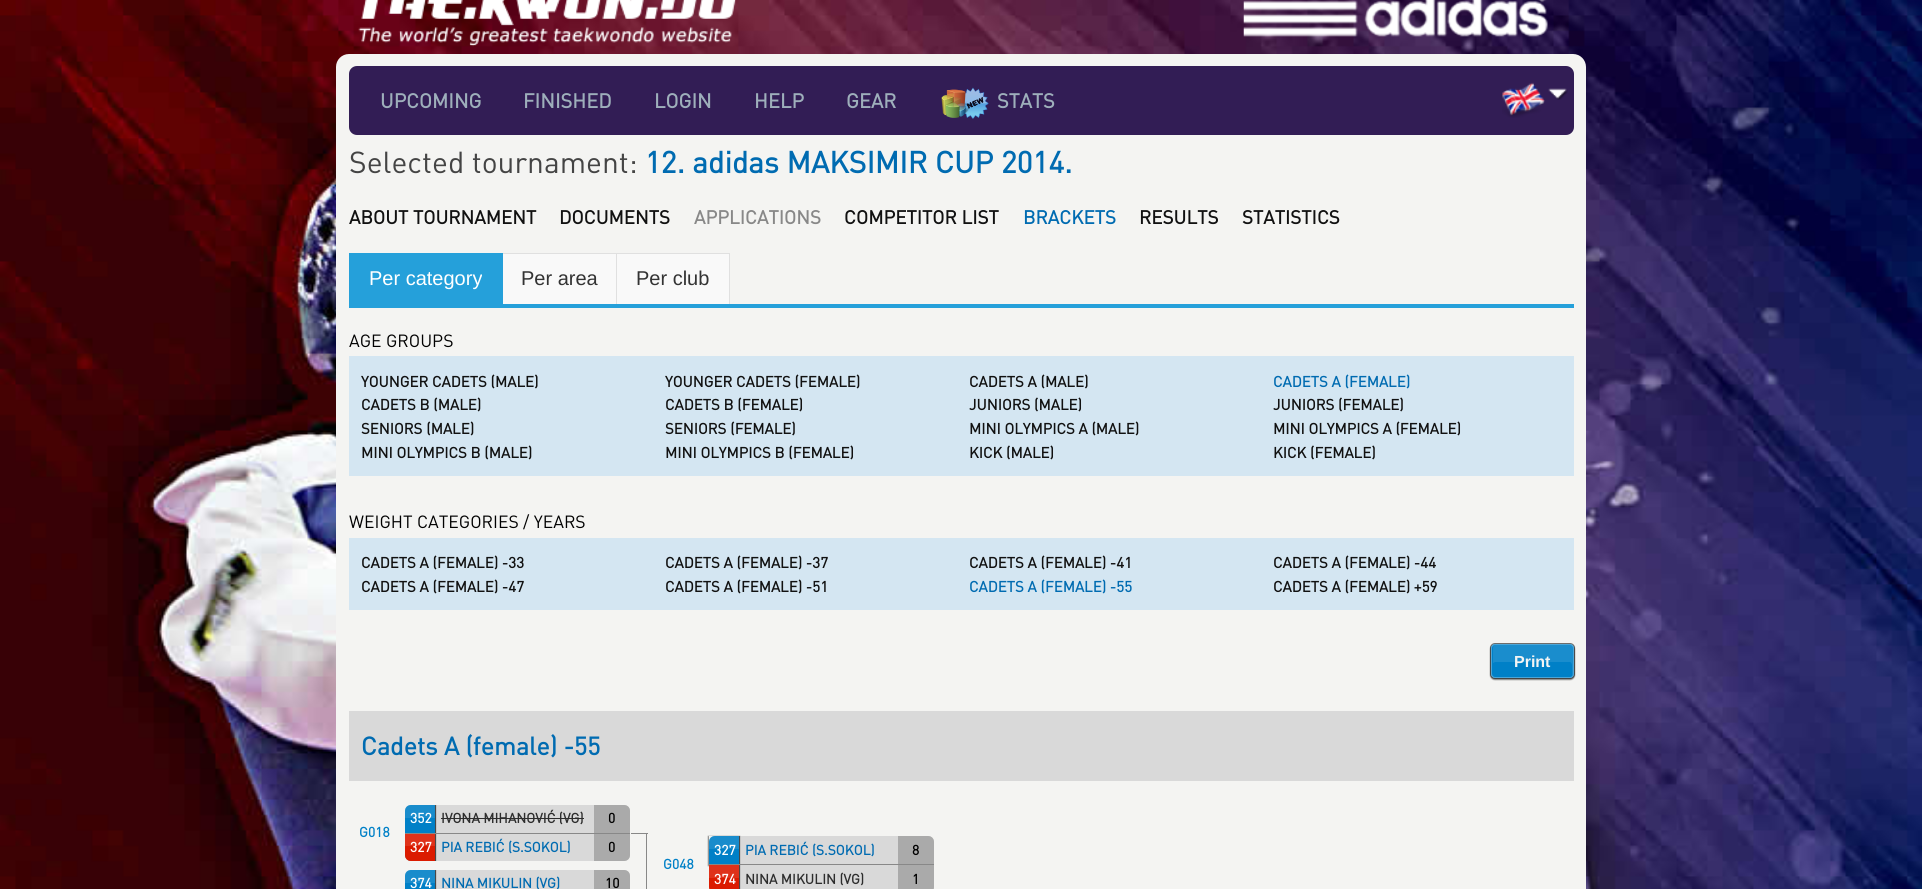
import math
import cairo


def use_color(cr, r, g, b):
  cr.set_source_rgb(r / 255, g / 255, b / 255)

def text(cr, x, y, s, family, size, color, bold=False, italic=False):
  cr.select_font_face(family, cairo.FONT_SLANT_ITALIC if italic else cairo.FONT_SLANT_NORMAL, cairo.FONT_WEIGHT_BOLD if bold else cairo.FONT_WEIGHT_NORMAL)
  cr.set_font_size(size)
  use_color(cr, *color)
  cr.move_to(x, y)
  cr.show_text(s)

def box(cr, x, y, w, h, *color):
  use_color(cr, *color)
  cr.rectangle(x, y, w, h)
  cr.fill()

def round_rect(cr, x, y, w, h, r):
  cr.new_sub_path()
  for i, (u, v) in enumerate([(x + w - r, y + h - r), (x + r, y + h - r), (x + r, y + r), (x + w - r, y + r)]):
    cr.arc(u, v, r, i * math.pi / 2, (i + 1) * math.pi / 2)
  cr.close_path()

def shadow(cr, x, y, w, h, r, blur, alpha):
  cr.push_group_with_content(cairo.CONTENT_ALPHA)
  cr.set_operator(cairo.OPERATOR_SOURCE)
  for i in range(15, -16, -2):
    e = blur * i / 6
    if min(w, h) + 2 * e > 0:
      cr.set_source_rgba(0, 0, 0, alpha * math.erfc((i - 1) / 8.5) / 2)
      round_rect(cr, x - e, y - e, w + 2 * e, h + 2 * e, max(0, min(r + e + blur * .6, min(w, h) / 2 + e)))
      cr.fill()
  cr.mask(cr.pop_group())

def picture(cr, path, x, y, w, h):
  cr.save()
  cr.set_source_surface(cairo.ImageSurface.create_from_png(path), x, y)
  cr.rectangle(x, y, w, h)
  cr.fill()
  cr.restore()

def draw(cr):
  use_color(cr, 255, 255, 255)
  cr.paint()
  picture(cr, "img_01.png", 0, 0, 1922, 889)
  picture(cr, "img_02.png", 358, 0, 378, 47)
  picture(cr, "img_03.png", 1243, 0, 305, 37)
  use_color(cr, 244, 244, 242)
  round_rect(cr, 336, 54, 1250, 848, 13)
  cr.fill()
  use_color(cr, 50, 29, 85)
  round_rect(cr, 349, 66, 1225, 69, 8)
  cr.fill()
  picture(cr, "img_04.png", 941, 87, 48, 32)
  picture(cr, "img_05.png", 1502, 82, 43, 36)
  picture(cr, "img_06.png", 1548, 88, 20, 12)
  box(cr, 349, 304, 1225, 4, 37, 160, 218)
  box(cr, 349, 253, 154, 51, 37, 160, 218)
  box(cr, 503, 254, 226, 50, 249, 249, 249)
  box(cr, 503, 253, 227, 1, 224, 224, 224)
  box(cr, 616, 253, 1, 51, 224, 224, 224)
  box(cr, 729, 253, 1, 51, 224, 224, 224)
  box(cr, 349, 356, 1225, 120, 212, 230, 242)
  box(cr, 349, 538, 1225, 72, 212, 230, 242)
  use_color(cr, 136, 136, 136)
  shadow(cr, 1490, 644, 85, 36, 5, 0.5, 1)
  round_rect(cr, 1490.5, 643.5, 84, 35, 4.5)
  cr.set_source_rgba(0, 0, 0, 0.5)
  cr.set_line_width(1)
  cr.stroke()
  use_color(cr, 0, 128, 199)
  round_rect(cr, 1491, 644, 83, 34, 4)
  cr.fill()
  use_color(cr, 26, 141, 205)
  cr.new_path()
  cr.move_to(1495, 662)
  cr.line_to(1570, 662)
  cr.curve_to(1571, 662, 1572, 664, 1572, 665)
  cr.line_to(1572, 676)
  cr.curve_to(1573, 675, 1573, 674, 1573, 674)
  cr.line_to(1573, 648)
  cr.curve_to(1573, 646, 1572, 645, 1570, 645)
  cr.line_to(1496, 645)
  cr.curve_to(1494, 645, 1493, 646, 1493, 648)
  cr.line_to(1493, 663)
  cr.close_path()
  cr.fill()
  round_rect(cr, 1491.5, 644.5, 82, 33, 3.5)
  cr.set_source_rgba(1, 1, 1, 0.3)
  cr.stroke()
  box(cr, 349, 711, 1225, 70, 217, 217, 217)
  cr.new_path()
  cr.move_to(411, 805)
  cr.line_to(624, 805)
  cr.curve_to(627.5, 805, 630, 807.5, 630, 811)
  cr.line_to(630, 833)
  cr.line_to(405, 833)
  cr.line_to(405, 811)
  cr.curve_to(405, 807.5, 407.5, 805, 411, 805)
  cr.close_path()
  cr.fill()
  cr.save()
  cr.rectangle(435, 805, 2, 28)
  cr.clip()
  use_color(cr, 136, 136, 136)
  shadow(cr, 404, 805, 32, 30, 0, 0.5, 1)
  cr.restore()
  cr.set_source_rgba(0, 0, 0, 0.5)
  cr.rectangle(435, 805, 1, 28)
  cr.fill()
  use_color(cr, 0, 128, 199)
  cr.new_path()
  cr.move_to(411, 805)
  cr.line_to(435, 805)
  cr.line_to(435, 833)
  cr.line_to(405, 833)
  cr.line_to(405, 811)
  cr.curve_to(405, 807.5, 407.5, 805, 411, 805)
  cr.close_path()
  cr.fill()
  cr.set_source_rgba(1, 1, 1, 0.1)
  cr.new_path()
  cr.move_to(411, 805)
  cr.line_to(435, 805)
  cr.line_to(435, 818)
  cr.line_to(405, 818)
  cr.line_to(405, 811)
  cr.curve_to(405, 807.5, 407.5, 805, 411, 805)
  cr.close_path()
  cr.fill()
  box(cr, 441, 818, 143, 1, 45, 45, 45)
  use_color(cr, 170, 170, 170)
  cr.new_path()
  cr.move_to(594, 805)
  cr.line_to(624, 805)
  cr.curve_to(627.5, 805, 630, 807.5, 630, 811)
  cr.line_to(630, 833)
  cr.line_to(594, 833)
  cr.close_path()
  cr.fill()
  use_color(cr, 217, 217, 217)
  cr.new_path()
  cr.move_to(405, 833)
  cr.line_to(630, 833)
  cr.line_to(630, 855)
  cr.curve_to(630, 858.5, 627.5, 861, 624, 861)
  cr.line_to(411, 861)
  cr.curve_to(407.5, 861, 405, 858.5, 405, 855)
  cr.close_path()
  cr.fill()
  box(cr, 405, 833, 225, 1, 136, 136, 136)
  cr.save()
  cr.new_path()
  cr.move_to(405, 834)
  cr.line_to(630, 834)
  cr.line_to(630, 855)
  cr.curve_to(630, 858.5, 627.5, 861, 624, 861)
  cr.line_to(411, 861)
  cr.curve_to(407.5, 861, 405, 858.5, 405, 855)
  cr.close_path()
  cr.clip()
  use_color(cr, 136, 136, 136)
  shadow(cr, 404, 834, 32, 30, 0, 0.5, 1)
  cr.restore()
  cr.set_source_rgba(0, 0, 0, 0.5)
  cr.rectangle(435, 834, 1, 27)
  cr.fill()
  use_color(cr, 219, 27, 0)
  cr.new_path()
  cr.move_to(405, 834)
  cr.line_to(435, 834)
  cr.line_to(435, 861)
  cr.line_to(411, 861)
  cr.curve_to(407.5, 861, 405, 858.5, 405, 855)
  cr.close_path()
  cr.fill()
  box(cr, 405, 834, 30, 12, 223, 50, 26)
  use_color(cr, 170, 170, 170)
  cr.new_path()
  cr.move_to(594, 834)
  cr.line_to(630, 834)
  cr.line_to(630, 855)
  cr.curve_to(630, 858.5, 627.5, 861, 624, 861)
  cr.line_to(594, 861)
  cr.close_path()
  cr.fill()
  box(cr, 646, 833, 1, 56, 136, 136, 136)
  box(cr, 631, 833, 17, 1, 136, 136, 136)
  use_color(cr, 217, 217, 217)
  cr.new_path()
  cr.move_to(411, 870)
  cr.line_to(624, 870)
  cr.curve_to(627.5, 870, 630, 872.5, 630, 876)
  cr.line_to(630, 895)
  cr.line_to(405, 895)
  cr.line_to(405, 876)
  cr.curve_to(405, 872.5, 407.5, 870, 411, 870)
  cr.close_path()
  cr.fill()
  cr.save()
  cr.rectangle(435, 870, 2, 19)
  cr.clip()
  use_color(cr, 136, 136, 136)
  shadow(cr, 404, 870, 32, 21, 0, 0.5, 1)
  cr.restore()
  cr.set_source_rgba(0, 0, 0, 0.5)
  cr.rectangle(435, 870, 1, 19)
  cr.fill()
  use_color(cr, 0, 128, 199)
  cr.new_path()
  cr.move_to(411, 870)
  cr.line_to(435, 870)
  cr.line_to(435, 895)
  cr.line_to(405, 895)
  cr.line_to(405, 876)
  cr.curve_to(405, 872.5, 407.5, 870, 411, 870)
  cr.close_path()
  cr.fill()
  cr.set_source_rgba(1, 1, 1, 0.1)
  cr.new_path()
  cr.move_to(411, 870)
  cr.line_to(435, 870)
  cr.line_to(435, 883)
  cr.line_to(405, 883)
  cr.line_to(405, 876)
  cr.curve_to(405, 872.5, 407.5, 870, 411, 870)
  cr.close_path()
  cr.fill()
  use_color(cr, 170, 170, 170)
  cr.new_path()
  cr.move_to(594, 870)
  cr.line_to(624, 870)
  cr.curve_to(627.5, 870, 630, 872.5, 630, 876)
  cr.line_to(630, 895)
  cr.line_to(594, 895)
  cr.close_path()
  cr.fill()
  use_color(cr, 217, 217, 217)
  cr.new_path()
  cr.move_to(715, 836)
  cr.line_to(928, 836)
  cr.curve_to(931.5, 836, 934, 838.5, 934, 842)
  cr.line_to(934, 864)
  cr.line_to(709, 864)
  cr.line_to(709, 842)
  cr.curve_to(709, 838.5, 711.5, 836, 715, 836)
  cr.close_path()
  cr.fill()
  cr.save()
  cr.set_fill_rule(cairo.FILL_RULE_EVEN_ODD)
  cr.new_path()
  cr.move_to(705, 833)
  cr.line_to(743, 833)
  cr.line_to(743, 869)
  cr.line_to(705, 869)
  cr.close_path()
  cr.move_to(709, 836)
  cr.line_to(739, 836)
  cr.line_to(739, 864)
  cr.line_to(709, 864)
  cr.close_path()
  cr.clip()
  use_color(cr, 136, 136, 136)
  shadow(cr, 708, 836, 32, 30, 0, 0.5, 1)
  cr.restore()
  cr.set_source_rgba(0, 0, 0, 0.5)
  cr.rectangle(739, 836, 1, 28)
  cr.fill()
  use_color(cr, 0, 128, 199)
  cr.new_path()
  cr.move_to(715, 836)
  cr.line_to(739, 836)
  cr.line_to(739, 864)
  cr.line_to(709, 864)
  cr.line_to(709, 842)
  cr.curve_to(709, 838.5, 711.5, 836, 715, 836)
  cr.close_path()
  cr.fill()
  cr.set_source_rgba(1, 1, 1, 0.1)
  cr.new_path()
  cr.move_to(715, 836)
  cr.line_to(739, 836)
  cr.line_to(739, 849)
  cr.line_to(709, 849)
  cr.line_to(709, 842)
  cr.curve_to(709, 838.5, 711.5, 836, 715, 836)
  cr.close_path()
  cr.fill()
  use_color(cr, 170, 170, 170)
  cr.new_path()
  cr.move_to(898, 836)
  cr.line_to(928, 836)
  cr.curve_to(931.5, 836, 934, 838.5, 934, 842)
  cr.line_to(934, 864)
  cr.line_to(898, 864)
  cr.close_path()
  cr.fill()
  use_color(cr, 217, 217, 217)
  cr.new_path()
  cr.move_to(709, 864)
  cr.line_to(934, 864)
  cr.line_to(934, 887)
  cr.curve_to(934, 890.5, 931.5, 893, 928, 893)
  cr.line_to(715, 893)
  cr.curve_to(711.5, 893, 709, 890.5, 709, 887)
  cr.close_path()
  cr.fill()
  box(cr, 709, 864, 225, 1, 136, 136, 136)
  cr.save()
  cr.rectangle(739, 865, 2, 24)
  cr.clip()
  use_color(cr, 136, 136, 136)
  shadow(cr, 708, 865, 32, 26, 0, 0.5, 1)
  cr.restore()
  cr.set_source_rgba(0, 0, 0, 0.5)
  cr.rectangle(739, 865, 1, 24)
  cr.fill()
  use_color(cr, 219, 27, 0)
  cr.new_path()
  cr.move_to(709, 865)
  cr.line_to(739, 865)
  cr.line_to(739, 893)
  cr.line_to(715, 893)
  cr.curve_to(711.5, 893, 709, 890.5, 709, 887)
  cr.close_path()
  cr.fill()
  box(cr, 709, 865, 30, 13, 223, 50, 26)
  use_color(cr, 170, 170, 170)
  cr.new_path()
  cr.move_to(898, 865)
  cr.line_to(934, 865)
  cr.line_to(934, 887)
  cr.curve_to(934, 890.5, 931.5, 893, 928, 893)
  cr.line_to(898, 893)
  cr.close_path()
  cr.fill()
  text(cr, 380, 108, "UPCOMING", "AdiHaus", 20, (158, 175, 187), bold=True)
  text(cr, 523, 108, "FINISHED", "AdiHaus", 20, (158, 175, 187), bold=True)
  text(cr, 654, 108, "LOGIN", "AdiHaus", 20, (158, 175, 187), bold=True)
  text(cr, 754, 108, "HELP", "AdiHaus", 20, (158, 175, 187), bold=True)
  text(cr, 846, 108, "GEAR", "AdiHaus", 20, (158, 175, 187), bold=True)
  text(cr, 997, 108, "STATS", "AdiHaus", 20, (158, 175, 187), bold=True)
  text(cr, 349, 173, "Selected tournament:", "AdiHaus", 30, (68, 68, 68))
  text(cr, 645, 173, "12. adidas MAKSIMIR CUP 2014.", "AdiHaus", 30, (0, 107, 177), bold=True)
  text(cr, 349, 224, "ABOUT TOURNAMENT", "AdiHaus", 18.75, (17, 17, 17), bold=True)
  text(cr, 559, 224, "DOCUMENTS", "AdiHaus", 18.75, (17, 17, 17), bold=True)
  text(cr, 694, 224, "APPLICATIONS", "AdiHaus", 18.75, (136, 136, 136), bold=True)
  text(cr, 844, 224, "COMPETITOR LIST", "AdiHaus", 18.75, (17, 17, 17), bold=True)
  text(cr, 1023, 224, "BRACKETS", "AdiHaus", 18.75, (0, 107, 177), bold=True)
  text(cr, 1139, 224, "RESULTS", "AdiHaus", 18.75, (17, 17, 17), bold=True)
  text(cr, 1242, 224, "STATISTICS", "AdiHaus", 18.75, (17, 17, 17), bold=True)
  text(cr, 369, 285, "Per category", "Liberation Sans", 20, (255, 255, 255))
  text(cr, 521, 285, "Per area", "Liberation Sans", 20, (51, 51, 51))
  text(cr, 636, 285, "Per club", "Liberation Sans", 20, (51, 51, 51))
  text(cr, 349, 347, "AGE GROUPS", "AdiHaus", 17.5, (0, 0, 0))
  text(cr, 361, 387, "YOUNGER CADETS (MALE)", "AdiHaus", 15, (17, 17, 17), bold=True)
  text(cr, 665, 387, "YOUNGER CADETS (FEMALE)", "AdiHaus", 15, (17, 17, 17), bold=True)
  text(cr, 969, 387, "CADETS A (MALE)", "AdiHaus", 15, (17, 17, 17), bold=True)
  text(cr, 1273, 387, "CADETS A (FEMALE)", "AdiHaus", 15, (0, 107, 177), bold=True)
  text(cr, 361, 410, "CADETS B (MALE)", "AdiHaus", 15, (17, 17, 17), bold=True)
  text(cr, 665, 410, "CADETS B (FEMALE)", "AdiHaus", 15, (17, 17, 17), bold=True)
  text(cr, 969, 410, "JUNIORS (MALE)", "AdiHaus", 15, (17, 17, 17), bold=True)
  text(cr, 1273, 410, "JUNIORS (FEMALE)", "AdiHaus", 15, (17, 17, 17), bold=True)
  text(cr, 361, 434, "SENIORS (MALE)", "AdiHaus", 15, (17, 17, 17), bold=True)
  text(cr, 665, 434, "SENIORS (FEMALE)", "AdiHaus", 15, (17, 17, 17), bold=True)
  text(cr, 969, 434, "MINI OLYMPICS A (MALE)", "AdiHaus", 15, (17, 17, 17), bold=True)
  text(cr, 1273, 434, "MINI OLYMPICS A (FEMALE)", "AdiHaus", 15, (17, 17, 17), bold=True)
  text(cr, 361, 458, "MINI OLYMPICS B (MALE)", "AdiHaus", 15, (17, 17, 17), bold=True)
  text(cr, 665, 458, "MINI OLYMPICS B (FEMALE)", "AdiHaus", 15, (17, 17, 17), bold=True)
  text(cr, 969, 458, "KICK (MALE)", "AdiHaus", 15, (17, 17, 17), bold=True)
  text(cr, 1273, 458, "KICK (FEMALE)", "AdiHaus", 15, (17, 17, 17), bold=True)
  text(cr, 349, 528, "WEIGHT CATEGORIES / YEARS", "AdiHaus", 17.5, (0, 0, 0))
  text(cr, 361, 568, "CADETS A (FEMALE) -33", "AdiHaus", 15, (17, 17, 17), bold=True)
  text(cr, 665, 568, "CADETS A (FEMALE) -37", "AdiHaus", 15, (17, 17, 17), bold=True)
  text(cr, 969, 568, "CADETS A (FEMALE) -41", "AdiHaus", 15, (17, 17, 17), bold=True)
  text(cr, 1273, 568, "CADETS A (FEMALE) -44", "AdiHaus", 15, (17, 17, 17), bold=True)
  text(cr, 361, 592, "CADETS A (FEMALE) -47", "AdiHaus", 15, (17, 17, 17), bold=True)
  text(cr, 665, 592, "CADETS A (FEMALE) -51", "AdiHaus", 15, (17, 17, 17), bold=True)
  text(cr, 969, 592, "CADETS A (FEMALE) -55", "AdiHaus", 15, (0, 107, 177), bold=True)
  text(cr, 1273, 592, "CADETS A (FEMALE) +59", "AdiHaus", 15, (17, 17, 17), bold=True)
  text(cr, 1514, 667, "Print", "Liberation Sans", 16, (244, 244, 244), bold=True)
  text(cr, 361, 755, "Cadets A (female) -55", "AdiHaus", 25, (0, 107, 177), bold=True)
  text(cr, 359, 837, "G018", "AdiHaus", 13.75, (0, 128, 199), bold=True)
  text(cr, 410, 823, "352", "AdiHaus", 13.75, (255, 255, 255), bold=True)
  text(cr, 441, 823, "IVONA MIHANOVIĆ (VG)", "AdiHaus", 13.75, (45, 45, 45), bold=True)
  text(cr, 608, 823, "0", "AdiHaus", 13.75, (0, 0, 0), bold=True)
  text(cr, 410, 852, "327", "AdiHaus", 13.75, (255, 255, 255), bold=True)
  text(cr, 441, 852, "PIA REBIĆ (S.SOKOL)", "AdiHaus", 13.75, (0, 107, 177), bold=True)
  text(cr, 608, 852, "0", "AdiHaus", 13.75, (0, 0, 0), bold=True)
  text(cr, 410, 888, "374", "AdiHaus", 13.75, (255, 255, 255), bold=True)
  text(cr, 441, 888, "NINA MIKULIN (VG)", "AdiHaus", 13.75, (0, 107, 177), bold=True)
  text(cr, 605, 888, "10", "AdiHaus", 13.75, (0, 0, 0), bold=True)
  text(cr, 663, 869, "G048", "AdiHaus", 13.75, (0, 128, 199), bold=True)
  text(cr, 714, 855, "327", "AdiHaus", 13.75, (255, 255, 255), bold=True)
  text(cr, 745, 855, "PIA REBIĆ (S.SOKOL)", "AdiHaus", 13.75, (0, 107, 177), bold=True)
  text(cr, 912, 855, "8", "AdiHaus", 13.75, (0, 0, 0), bold=True)
  text(cr, 714, 884, "374", "AdiHaus", 13.75, (255, 255, 255), bold=True)
  text(cr, 745, 884, "NINA MIKULIN (VG)", "AdiHaus", 13.75, (45, 45, 45), bold=True)
  text(cr, 912, 884, "1", "AdiHaus", 13.75, (0, 0, 0), bold=True)


surface = cairo.ImageSurface(cairo.FORMAT_RGB24, 1922, 889)
cr = cairo.Context(surface)
options = cairo.FontOptions()
options.set_hint_metrics(cairo.HINT_METRICS_OFF)
options.set_hint_style(cairo.HINT_STYLE_NONE)
cr.set_font_options(options)
cr.set_miter_limit(4)
draw(cr)
surface.write_to_png("out.png")
